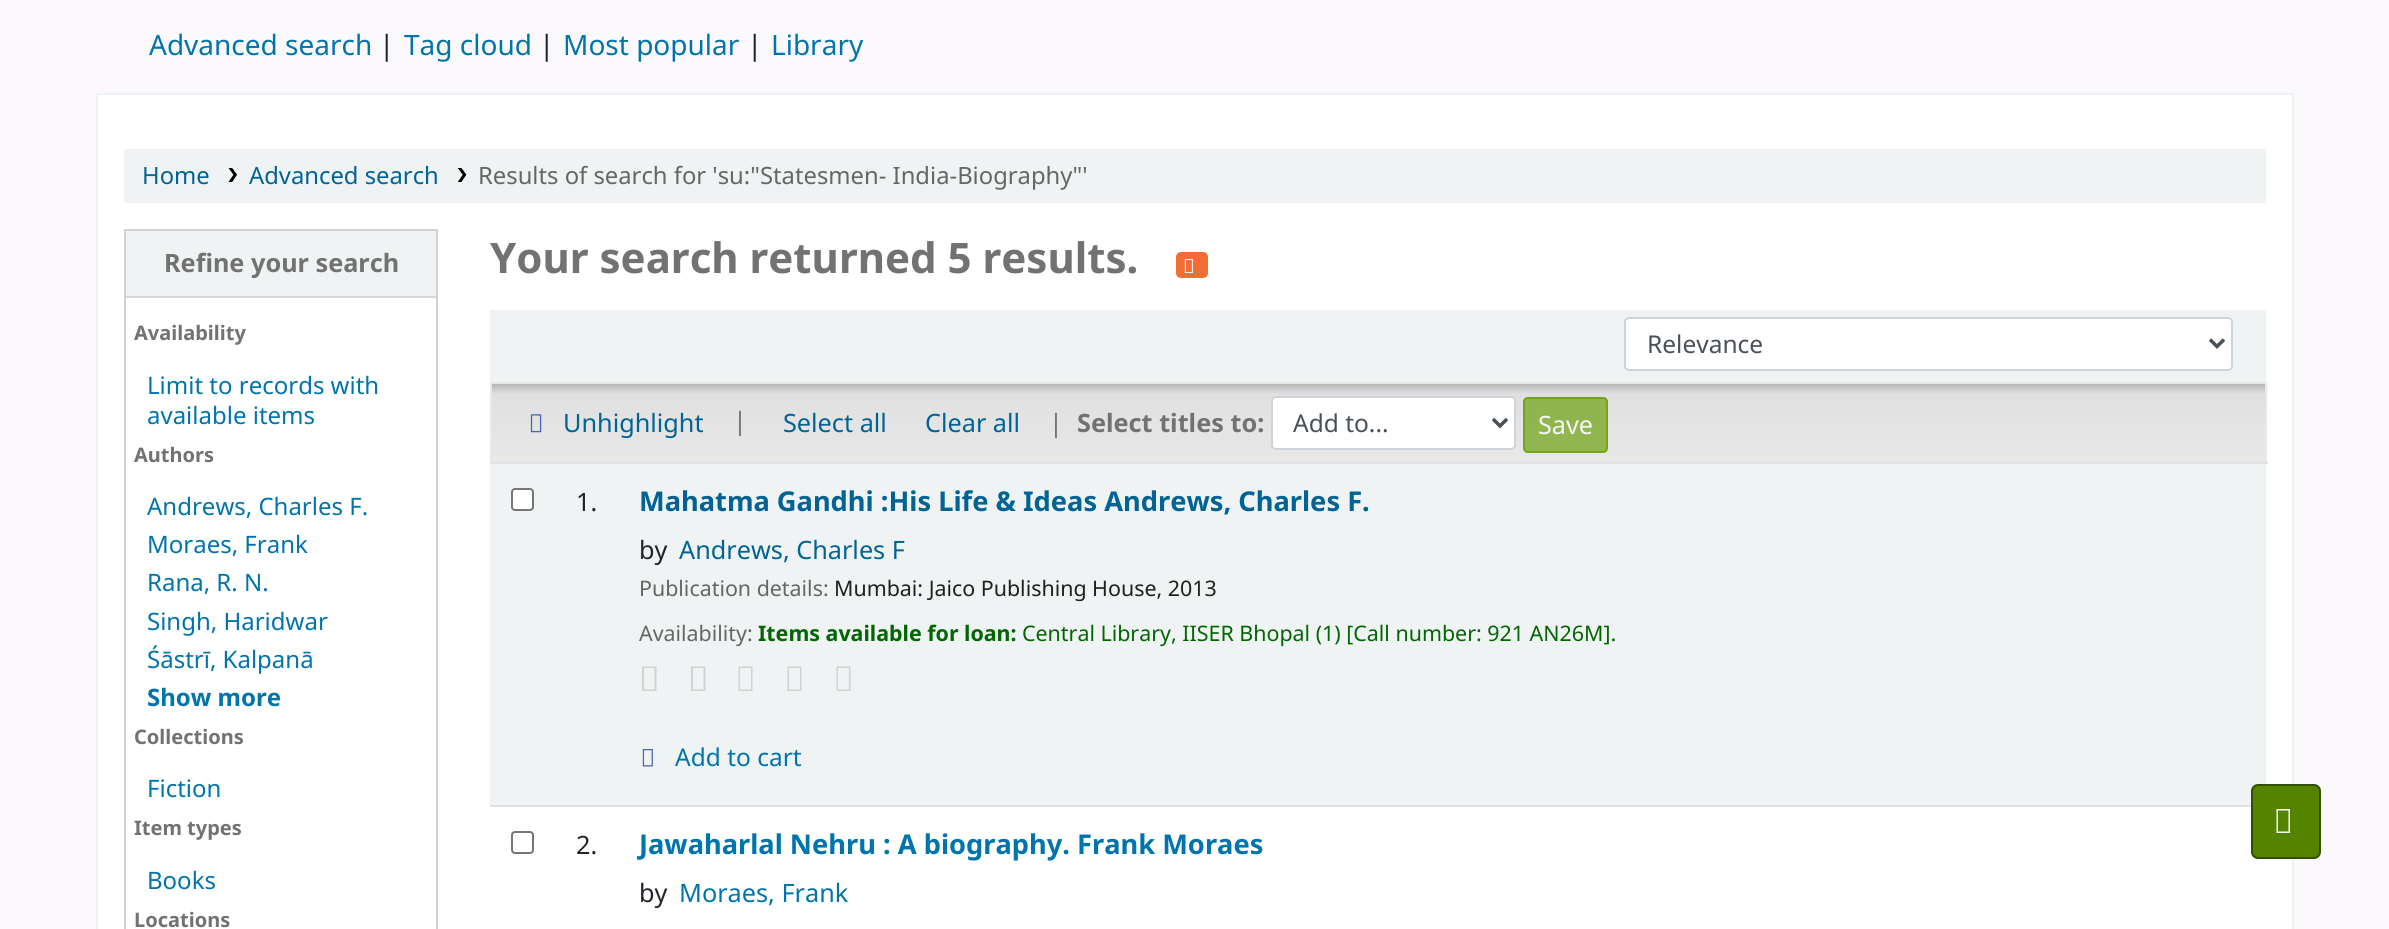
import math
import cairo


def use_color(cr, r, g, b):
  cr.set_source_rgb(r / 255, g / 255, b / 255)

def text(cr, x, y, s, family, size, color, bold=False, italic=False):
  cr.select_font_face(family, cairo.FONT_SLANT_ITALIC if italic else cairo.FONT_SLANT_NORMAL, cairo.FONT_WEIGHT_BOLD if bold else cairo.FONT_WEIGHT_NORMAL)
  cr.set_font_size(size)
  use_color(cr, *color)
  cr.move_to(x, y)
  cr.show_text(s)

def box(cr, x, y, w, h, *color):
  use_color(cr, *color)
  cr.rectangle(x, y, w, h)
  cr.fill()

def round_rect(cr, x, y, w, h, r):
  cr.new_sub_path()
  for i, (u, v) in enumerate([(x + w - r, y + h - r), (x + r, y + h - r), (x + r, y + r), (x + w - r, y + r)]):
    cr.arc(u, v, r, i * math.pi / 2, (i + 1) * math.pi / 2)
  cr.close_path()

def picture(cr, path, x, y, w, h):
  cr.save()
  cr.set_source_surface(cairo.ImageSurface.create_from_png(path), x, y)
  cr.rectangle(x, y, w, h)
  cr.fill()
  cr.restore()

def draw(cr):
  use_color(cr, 252, 249, 252)
  cr.paint()
  use_color(cr, 255, 255, 255)
  cr.rectangle(97, 94, 2196, 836)
  cr.fill_preserve()
  use_color(cr, 240, 243, 243)
  cr.stroke()
  box(cr, 124, 149, 2142, 54, 240, 243, 243)
  picture(cr, "img_01.png", 228, 168, 9, 14)
  picture(cr, "img_02.png", 457, 168, 10, 14)
  cr.rectangle(125, 230, 312, 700)
  use_color(cr, 210, 210, 207)
  cr.stroke()
  box(cr, 126, 231, 310, 65, 240, 243, 243)
  box(cr, 126, 296, 310, 2, 216, 216, 216)
  use_color(cr, 240, 109, 52)
  round_rect(cr, 1176, 252, 32, 26, 5)
  cr.fill()
  picture(cr, "img_03.png", 1184, 259, 9, 14)
  box(cr, 490, 310, 1776, 72, 240, 243, 243)
  use_color(cr, 255, 255, 255)
  round_rect(cr, 1625, 318, 607, 52, 4)
  cr.fill_preserve()
  use_color(cr, 206, 212, 218)
  cr.stroke()
  cr.new_path()
  cr.move_to(2210, 339.5)
  cr.line_to(2217, 346.5)
  cr.line_to(2224, 339.5)
  use_color(cr, 73, 80, 87)
  cr.set_line_width(3.5)
  cr.stroke()
  gradient = cairo.LinearGradient(1378, 383, 1378, 462)
  gradient.add_color_stop_rgba(0, 0.698, 0.698, 0.698, 1)
  gradient.add_color_stop_rgba(0.14, 0.878, 0.878, 0.878, 1)
  gradient.add_color_stop_rgba(1, 0.91, 0.91, 0.91, 1)
  cr.set_source(gradient)
  cr.rectangle(492, 384, 1773, 78)
  cr.fill()
  box(cr, 490, 382, 1776, 2, 232, 232, 232)
  box(cr, 2265, 382, 2, 80, 232, 232, 232)
  box(cr, 490, 382, 2, 80, 232, 232, 232)
  picture(cr, "img_04.png", 530, 414, 12, 19)
  use_color(cr, 255, 255, 255)
  round_rect(cr, 1272, 397, 243, 52, 4)
  cr.fill_preserve()
  use_color(cr, 206, 212, 218)
  cr.set_line_width(2)
  cr.stroke()
  cr.new_path()
  cr.move_to(1493, 419)
  cr.line_to(1500, 426)
  cr.line_to(1507, 419)
  use_color(cr, 73, 80, 87)
  cr.set_line_width(3.5)
  cr.stroke()
  cr.set_source_rgba(0.392, 0.616, 0, 0.65)
  round_rect(cr, 1523, 397, 85, 56, 5)
  cr.fill()
  round_rect(cr, 1524, 398, 83, 54, 4)
  cr.set_line_width(2)
  cr.stroke()
  box(cr, 490, 464, 1776, 341, 240, 243, 243)
  use_color(cr, 255, 255, 255)
  round_rect(cr, 512, 489, 21, 21, 3)
  cr.fill_preserve()
  use_color(cr, 118, 118, 118)
  cr.stroke()
  box(cr, 490, 462, 1778, 2, 222, 226, 230)
  use_color(cr, 210, 210, 210)
  cr.new_path()
  cr.move_to(642, 691)
  cr.line_to(642, 666.5)
  cr.line_to(656.5, 666.5)
  cr.line_to(656.5, 691)
  cr.close_path()
  cr.move_to(644, 689.5)
  cr.line_to(654.5, 689.5)
  cr.line_to(654.5, 668)
  cr.line_to(644, 668)
  cr.close_path()
  cr.fill()
  cr.new_path()
  cr.move_to(691, 691)
  cr.line_to(691, 666.5)
  cr.line_to(705.5, 666.5)
  cr.line_to(705.5, 691)
  cr.close_path()
  cr.move_to(693, 689.5)
  cr.line_to(703.5, 689.5)
  cr.line_to(703.5, 668)
  cr.line_to(693, 668)
  cr.close_path()
  cr.move_to(738.5, 691)
  cr.line_to(738.5, 666.5)
  cr.line_to(752.5, 666.5)
  cr.line_to(752.5, 691)
  cr.close_path()
  cr.move_to(740, 689.5)
  cr.line_to(751, 689.5)
  cr.line_to(751, 668)
  cr.line_to(740, 668)
  cr.close_path()
  cr.fill()
  cr.new_path()
  cr.move_to(787.5, 691)
  cr.line_to(787.5, 666.5)
  cr.line_to(801.5, 666.5)
  cr.line_to(801.5, 691)
  cr.close_path()
  cr.move_to(789, 689.5)
  cr.line_to(800, 689.5)
  cr.line_to(800, 668)
  cr.line_to(789, 668)
  cr.close_path()
  cr.fill()
  cr.new_path()
  cr.move_to(836.5, 691)
  cr.line_to(836.5, 666.5)
  cr.line_to(850.5, 666.5)
  cr.line_to(850.5, 691)
  cr.close_path()
  cr.move_to(838, 689.5)
  cr.line_to(849, 689.5)
  cr.line_to(849, 668)
  cr.line_to(838, 668)
  cr.close_path()
  cr.fill()
  picture(cr, "img_05.png", 642, 749, 11, 18)
  round_rect(cr, 512, 832, 21, 21, 3)
  use_color(cr, 118, 118, 118)
  cr.stroke()
  box(cr, 490, 805, 1761, 2, 222, 226, 230)
  use_color(cr, 84, 131, 0)
  round_rect(cr, 2252, 785, 68, 73, 6)
  cr.fill_preserve()
  use_color(cr, 51, 80, 0)
  cr.stroke()
  use_color(cr, 255, 255, 255)
  cr.new_path()
  cr.move_to(2276.5, 833)
  cr.line_to(2276.5, 809)
  cr.line_to(2290, 809)
  cr.line_to(2290, 833)
  cr.close_path()
  cr.move_to(2278, 831.5)
  cr.line_to(2288.5, 831.5)
  cr.line_to(2288.5, 810.5)
  cr.line_to(2278, 810.5)
  cr.close_path()
  cr.fill()
  text(cr, 149, 55, "Advanced search", "Noto Sans", 28, (0, 116, 173))
  text(cr, 379, 55, "|", "Noto Sans", 28, (33, 37, 41))
  text(cr, 404, 55, "Tag cloud", "Noto Sans", 28, (0, 116, 173))
  text(cr, 539, 55, "|", "Noto Sans", 28, (33, 37, 41))
  text(cr, 563, 55, "Most popular", "Noto Sans", 28, (0, 116, 173))
  text(cr, 747, 55, "|", "Noto Sans", 28, (33, 37, 41))
  text(cr, 771, 55, "Library", "Noto Sans", 28, (0, 116, 173))
  text(cr, 142, 184, "Home", "Noto Sans", 23.8, (0, 99, 148))
  text(cr, 249, 184, "Advanced search", "Noto Sans", 23.8, (0, 99, 148))
  text(cr, 478, 184, "Results of search for 'su:\"Statesmen- India-Biography\"'", "Noto Sans", 23.8, (102, 102, 102))
  text(cr, 164, 272, "Refine your search", "Noto Sans", 25.25, (114, 114, 114), bold=True)
  text(cr, 134, 340, "Availability", "Noto Sans", 20, (114, 114, 114), bold=True)
  text(cr, 147, 394, "Limit to records with", "Noto Sans", 24, (0, 116, 173))
  text(cr, 147, 424, "available items", "Noto Sans", 24, (0, 116, 173))
  text(cr, 134, 462, "Authors", "Noto Sans", 20, (114, 114, 114), bold=True)
  text(cr, 147, 515, "Andrews, Charles F.", "Noto Sans", 24, (0, 116, 173))
  text(cr, 147, 553, "Moraes, Frank", "Noto Sans", 24, (0, 116, 173))
  text(cr, 147, 591, "Rana, R. N.", "Noto Sans", 24, (0, 116, 173))
  text(cr, 147, 630, "Singh, Haridwar", "Noto Sans", 24, (0, 116, 173))
  text(cr, 147, 668, "Śāstrī, Kalpanā", "Noto Sans", 24, (0, 116, 173))
  text(cr, 147, 706, "Show more", "Noto Sans", 24, (0, 116, 173), bold=True)
  text(cr, 134, 744, "Collections", "Noto Sans", 20, (114, 114, 114), bold=True)
  text(cr, 147, 797, "Fiction", "Noto Sans", 24, (0, 116, 173))
  text(cr, 134, 835, "Item types", "Noto Sans", 20, (114, 114, 114), bold=True)
  text(cr, 147, 889, "Books", "Noto Sans", 24, (0, 116, 173))
  text(cr, 134, 927, "Locations", "Noto Sans", 20, (114, 114, 114), bold=True)
  text(cr, 490, 273, "Your search returned 5 results.", "Noto Sans", 42, (114, 114, 114), bold=True)
  text(cr, 1647, 353, "Relevance", "Noto Sans", 24.5, (73, 80, 87))
  text(cr, 563, 432, "Unhighlight", "Noto Sans", 25.25, (0, 99, 148))
  text(cr, 733, 430, "|", "Noto Sans", 25.25, (108, 117, 125))
  text(cr, 783, 432, "Select all", "Noto Sans", 25.25, (0, 99, 148))
  text(cr, 925, 432, "Clear all", "Noto Sans", 25.25, (0, 99, 148))
  text(cr, 1049, 432, "|", "Noto Sans", 25.25, (108, 117, 125))
  text(cr, 1077, 432, "Select titles to:", "Noto Sans", 25.25, (114, 114, 114), bold=True)
  text(cr, 1293, 432, "Add to...", "Noto Sans", 24.5, (73, 80, 87))
  text(cr, 1538, 434, "Save", "Noto Sans", 25.25, (246, 246, 246))
  text(cr, 576, 511, "1.", "Noto Sans", 25.25, (33, 37, 41))
  text(cr, 639, 511, "Mahatma Gandhi :His Life & Ideas Andrews, Charles F.", "Noto Sans", 27.25, (0, 99, 148), bold=True)
  text(cr, 639, 559, "by", "Noto Sans", 25.25, (33, 37, 41))
  text(cr, 679, 559, "Andrews, Charles F", "Noto Sans", 25.25, (0, 99, 148))
  text(cr, 639, 596, "Publication details:", "Noto Sans", 21.4, (102, 102, 102))
  text(cr, 834, 596, "Mumbai: Jaico Publishing House, 2013", "Noto Sans", 21.4, (32, 32, 32))
  text(cr, 639, 641, "Availability:", "Noto Sans", 21.4, (102, 102, 102))
  text(cr, 758, 641, "Items available for loan:", "Noto Sans", 21.4, (0, 102, 0), bold=True)
  text(cr, 1022, 641, "Central Library, IISER Bhopal (1) [Call number: 921 AN26M].", "Noto Sans", 21.4, (0, 102, 0))
  text(cr, 675, 766, "Add to cart", "Noto Sans", 24.5, (0, 116, 173))
  text(cr, 576, 854, "2.", "Noto Sans", 25.25, (33, 37, 41))
  text(cr, 639, 854, "Jawaharlal Nehru : A biography. Frank Moraes", "Noto Sans", 27.25, (0, 116, 173), bold=True)
  text(cr, 639, 902, "by", "Noto Sans", 25.25, (33, 37, 41))
  text(cr, 679, 902, "Moraes, Frank", "Noto Sans", 25.25, (0, 116, 173))


surface = cairo.ImageSurface(cairo.FORMAT_RGB24, 2389, 929)
cr = cairo.Context(surface)
options = cairo.FontOptions()
options.set_hint_metrics(cairo.HINT_METRICS_OFF)
options.set_hint_style(cairo.HINT_STYLE_NONE)
cr.set_font_options(options)
cr.set_miter_limit(4)
draw(cr)
surface.write_to_png("out.png")
